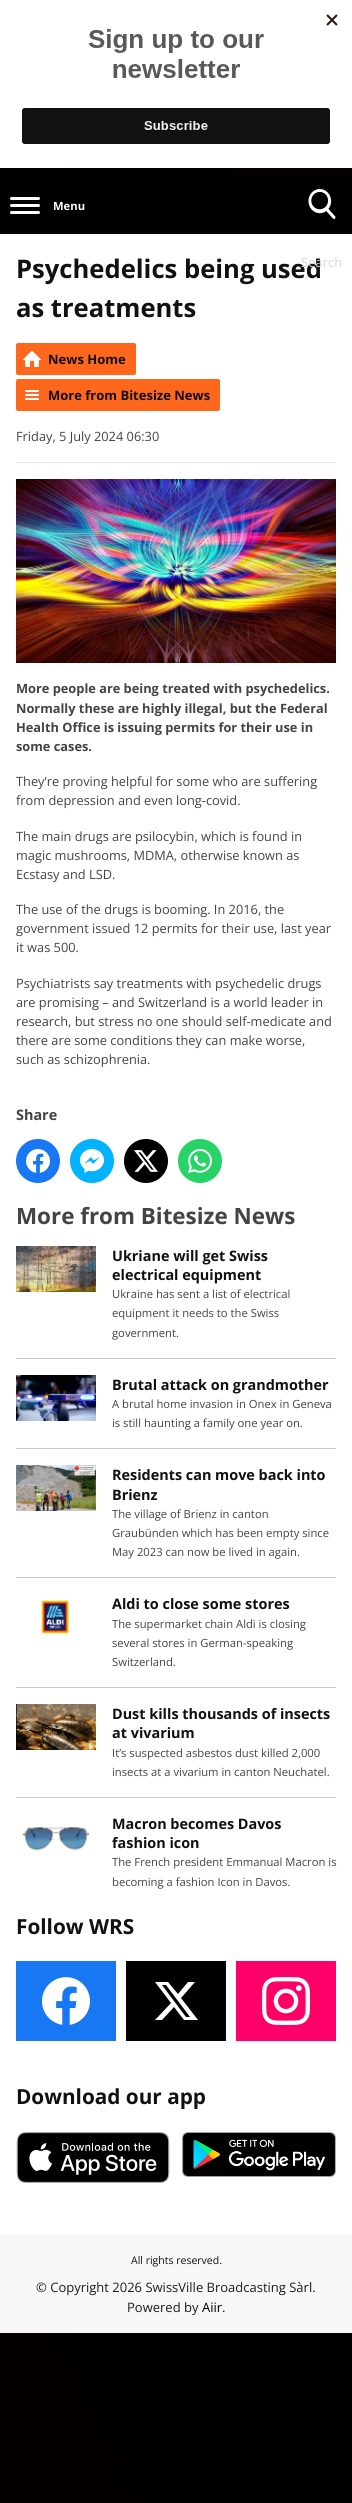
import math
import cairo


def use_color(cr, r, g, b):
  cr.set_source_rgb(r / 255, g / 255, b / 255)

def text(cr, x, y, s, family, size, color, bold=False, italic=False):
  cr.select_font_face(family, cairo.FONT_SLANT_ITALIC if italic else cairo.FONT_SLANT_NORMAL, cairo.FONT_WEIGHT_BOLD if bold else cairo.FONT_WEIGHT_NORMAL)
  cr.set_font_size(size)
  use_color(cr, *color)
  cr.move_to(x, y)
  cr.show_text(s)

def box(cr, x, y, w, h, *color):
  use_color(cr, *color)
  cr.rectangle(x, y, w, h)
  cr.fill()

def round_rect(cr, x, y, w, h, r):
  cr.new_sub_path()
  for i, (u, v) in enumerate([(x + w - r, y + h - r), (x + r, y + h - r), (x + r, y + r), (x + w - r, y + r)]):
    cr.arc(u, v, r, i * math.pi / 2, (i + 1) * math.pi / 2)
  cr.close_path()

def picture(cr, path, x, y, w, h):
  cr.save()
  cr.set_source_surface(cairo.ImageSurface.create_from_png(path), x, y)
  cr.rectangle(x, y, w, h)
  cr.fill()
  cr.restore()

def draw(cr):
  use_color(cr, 255, 255, 255)
  cr.paint()
  picture(cr, "img_01.png", 0, 168, 352, 2335)
  picture(cr, "img_02.png", 22, 14, 316, 130)
  box(cr, 0, 174, 352, 60, 0, 0, 0)
  use_color(cr, 255, 255, 255)
  round_rect(cr, 10, 197, 30, 3, 1.5)
  cr.fill()
  round_rect(cr, 10, 204, 30, 3, 1.5)
  cr.fill()
  round_rect(cr, 10, 211, 30, 3, 1.5)
  cr.fill()
  picture(cr, "img_03.png", 308, 189, 28, 30)
  box(cr, 0, 234, 352, 2001, 255, 255, 255)
  use_color(cr, 255, 103, 29)
  round_rect(cr, 16, 343, 120, 32, 2)
  cr.fill()
  picture(cr, "img_04.png", 23, 351, 18, 16)
  round_rect(cr, 16, 379, 204, 32, 2)
  cr.fill()
  picture(cr, "img_05.png", 25, 390, 14, 10)
  box(cr, 16, 462, 320, 1, 230, 230, 230)
  picture(cr, "img_06.png", 16, 479, 320, 184)
  use_color(cr, 24, 119, 242)
  cr.arc(38, 1161, 22, 0, 2 * math.pi)
  cr.fill()
  picture(cr, "img_07.png", 26, 1149, 24, 24)
  use_color(cr, 0, 178, 255)
  cr.arc(92, 1161, 22, 0, 2 * math.pi)
  cr.fill()
  picture(cr, "img_08.png", 80, 1149, 24, 24)
  use_color(cr, 0, 0, 0)
  cr.arc(146, 1161, 22, 0, 2 * math.pi)
  cr.fill()
  picture(cr, "img_09.png", 134, 1150, 24, 22)
  use_color(cr, 37, 211, 102)
  cr.arc(200, 1161, 22, 0, 2 * math.pi)
  cr.fill()
  picture(cr, "img_10.png", 188, 1149, 24, 24)
  picture(cr, "img_11.png", 16, 1246, 80, 46)
  box(cr, 16, 1358, 320, 1, 204, 204, 204)
  picture(cr, "img_12.png", 16, 1375, 80, 46)
  box(cr, 16, 1448, 320, 1, 204, 204, 204)
  picture(cr, "img_13.png", 16, 1465, 80, 46)
  box(cr, 16, 1577, 320, 1, 204, 204, 204)
  picture(cr, "img_14.png", 41, 1600, 28, 34)
  box(cr, 16, 1687, 320, 1, 204, 204, 204)
  picture(cr, "img_15.png", 16, 1704, 80, 46)
  box(cr, 16, 1797, 320, 1, 204, 204, 204)
  picture(cr, "img_16.png", 22, 1826, 68, 25)
  box(cr, 16, 1961, 100, 80, 24, 119, 242)
  picture(cr, "img_17.png", 42, 1977, 48, 48)
  box(cr, 126, 1961, 100, 80, 0, 0, 0)
  use_color(cr, 255, 255, 255)
  cr.new_path()
  cr.move_to(188, 1982)
  cr.line_to(195, 1982)
  cr.line_to(181, 1998)
  cr.line_to(198, 2020)
  cr.line_to(184, 2020)
  cr.line_to(174, 2007)
  cr.line_to(162, 2020)
  cr.line_to(155, 2020)
  cr.line_to(171, 2003)
  cr.line_to(155, 1982)
  cr.line_to(168, 1982)
  cr.line_to(178, 1994)
  cr.close_path()
  cr.move_to(186, 2017)
  cr.line_to(190, 2017)
  cr.line_to(166, 1985)
  cr.line_to(162, 1985)
  cr.close_path()
  cr.fill()
  box(cr, 236, 1961, 100, 80, 255, 0, 105)
  picture(cr, "img_18.png", 262, 1977, 48, 48)
  picture(cr, "img_19.png", 16, 2132, 154, 51)
  picture(cr, "img_20.png", 182, 2132, 154, 45)
  box(cr, 0, 2235, 352, 98, 247, 247, 247)
  text(cr, 53, 210, "Menu", "Open Sans", 11.25, (255, 255, 255), bold=True)
  text(cr, 16, 278, "Psychedelics being used", "Open Sans", 25.6, (17, 17, 17), bold=True)
  text(cr, 301, 267, "Search", "Open Sans", 13, (215, 215, 215))
  text(cr, 16, 317, "as treatments", "Open Sans", 25.6, (17, 17, 17), bold=True)
  text(cr, 48, 364, "News Home", "Open Sans", 13, (17, 17, 17), bold=True)
  text(cr, 48, 400, "More from Bitesize News", "Open Sans", 13, (17, 17, 17), bold=True)
  text(cr, 16, 441, "Friday, 5 July 2024 06:30", "Open Sans", 12.8, (68, 68, 68))
  text(cr, 16, 693, "More people are being treated with psychedelics.", "Open Sans", 12.8, (68, 68, 68), bold=True)
  text(cr, 16, 713, "Normally these are highly illegal, but the Federal", "Open Sans", 12.8, (68, 68, 68), bold=True)
  text(cr, 16, 732, "Health Office is issuing permits for their use in", "Open Sans", 12.8, (68, 68, 68), bold=True)
  text(cr, 16, 751, "some cases.", "Open Sans", 12.8, (68, 68, 68), bold=True)
  text(cr, 16, 786, "They’re proving helpful for some who are suffering", "Open Sans", 12.8, (68, 68, 68))
  text(cr, 16, 805, "from depression and even long-covid.", "Open Sans", 12.8, (68, 68, 68))
  text(cr, 16, 841, "The main drugs are psilocybin, which is found in", "Open Sans", 12.8, (68, 68, 68))
  text(cr, 16, 860, "magic mushrooms, MDMA, otherwise known as", "Open Sans", 12.8, (68, 68, 68))
  text(cr, 16, 879, "Ecstasy and LSD.", "Open Sans", 12.8, (68, 68, 68))
  text(cr, 16, 914, "The use of the drugs is booming. In 2016, the", "Open Sans", 12.8, (68, 68, 68))
  text(cr, 16, 933, "government issued 12 permits for their use, last year", "Open Sans", 12.8, (68, 68, 68))
  text(cr, 16, 952, "it was 500.", "Open Sans", 12.8, (68, 68, 68))
  text(cr, 16, 988, "Psychiatrists say treatments with psychedelic drugs", "Open Sans", 12.8, (68, 68, 68))
  text(cr, 16, 1007, "are promising – and Switzerland is a world leader in", "Open Sans", 12.8, (68, 68, 68))
  text(cr, 16, 1026, "research, but stress no one should self-medicate and", "Open Sans", 12.8, (68, 68, 68))
  text(cr, 16, 1045, "there are some conditions they can make worse,", "Open Sans", 12.8, (68, 68, 68))
  text(cr, 16, 1064, "such as schizophrenia.", "Open Sans", 12.8, (68, 68, 68))
  text(cr, 16, 1120, "Share", "Open Sans", 14.4, (68, 68, 68), bold=True)
  text(cr, 16, 1224, "More from Bitesize News", "Open Sans", 22.4, (68, 68, 68), bold=True)
  text(cr, 112, 1261, "Ukriane will get Swiss", "Open Sans", 14.4, (17, 17, 17), bold=True)
  text(cr, 112, 1280, "electrical equipment", "Open Sans", 14.4, (17, 17, 17), bold=True)
  text(cr, 112, 1298, "Ukraine has sent a list of electrical", "Open Sans", 11.25, (68, 68, 68))
  text(cr, 112, 1317, "equipment it needs to the Swiss", "Open Sans", 11.25, (68, 68, 68))
  text(cr, 112, 1337, "government.", "Open Sans", 11.25, (68, 68, 68))
  text(cr, 112, 1390, "Brutal attack on grandmother", "Open Sans", 14.4, (17, 17, 17), bold=True)
  text(cr, 112, 1408, "A brutal home invasion in Onex in Geneva", "Open Sans", 11.25, (68, 68, 68))
  text(cr, 112, 1427, "is still haunting a family one year on.", "Open Sans", 11.25, (68, 68, 68))
  text(cr, 112, 1480, "Residents can move back into", "Open Sans", 14.4, (17, 17, 17), bold=True)
  text(cr, 112, 1500, "Brienz", "Open Sans", 14.4, (17, 17, 17), bold=True)
  text(cr, 112, 1518, "The village of Brienz in canton", "Open Sans", 11.25, (68, 68, 68))
  text(cr, 112, 1537, "Graubünden which has been empty since", "Open Sans", 11.25, (68, 68, 68))
  text(cr, 112, 1556, "May 2023 can now be lived in again.", "Open Sans", 11.25, (68, 68, 68))
  text(cr, 112, 1609, "Aldi to close some stores", "Open Sans", 14.4, (17, 17, 17), bold=True)
  text(cr, 112, 1628, "The supermarket chain Aldi is closing", "Open Sans", 11.25, (68, 68, 68))
  text(cr, 112, 1647, "several stores in German-speaking", "Open Sans", 11.25, (68, 68, 68))
  text(cr, 112, 1666, "Switzerland.", "Open Sans", 11.25, (68, 68, 68))
  text(cr, 112, 1719, "Dust kills thousands of insects", "Open Sans", 14.4, (17, 17, 17), bold=True)
  text(cr, 112, 1738, "at vivarium", "Open Sans", 14.4, (17, 17, 17), bold=True)
  text(cr, 112, 1757, "It’s suspected asbestos dust killed 2,000", "Open Sans", 11.25, (68, 68, 68))
  text(cr, 112, 1776, "insects at a vivarium in canton Neuchatel.", "Open Sans", 11.25, (68, 68, 68))
  text(cr, 112, 1829, "Macron becomes Davos", "Open Sans", 14.4, (17, 17, 17), bold=True)
  text(cr, 112, 1848, "fashion icon", "Open Sans", 14.4, (17, 17, 17), bold=True)
  text(cr, 112, 1866, "The French president Emmanual Macron is", "Open Sans", 11.25, (68, 68, 68))
  text(cr, 112, 1886, "becoming a fashion Icon in Davos.", "Open Sans", 11.25, (68, 68, 68))
  text(cr, 16, 1934, "Follow WRS", "Open Sans", 20.75, (17, 17, 17), bold=True)
  text(cr, 16, 2104, "Download our app", "Open Sans", 20.75, (17, 17, 17), bold=True)
  text(cr, 131, 2264, "All rights reserved.", "Open Sans", 10.5, (17, 17, 17))
  text(cr, 36, 2292, "© Copyright 2026 SwissVille Broadcasting Sàrl.", "Open Sans", 13, (29, 29, 29))
  text(cr, 127, 2312, "Powered by", "Open Sans", 13, (29, 29, 29))
  text(cr, 202, 2312, "Aiir", "Open Sans", 13, (0, 0, 0))
  text(cr, 222, 2312, ".", "Open Sans", 13, (29, 29, 29))


surface = cairo.ImageSurface(cairo.FORMAT_RGB24, 352, 2503)
cr = cairo.Context(surface)
options = cairo.FontOptions()
options.set_hint_metrics(cairo.HINT_METRICS_OFF)
options.set_hint_style(cairo.HINT_STYLE_NONE)
cr.set_font_options(options)
cr.set_miter_limit(4)
draw(cr)
surface.write_to_png("out.png")
